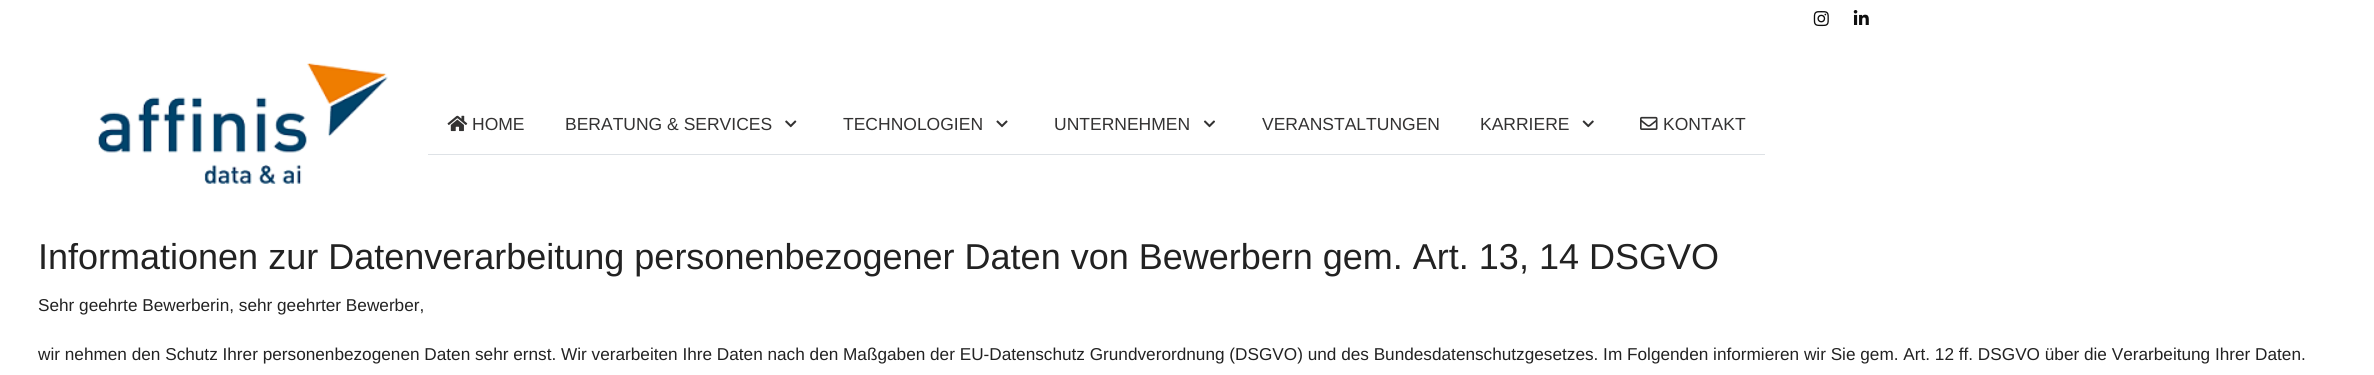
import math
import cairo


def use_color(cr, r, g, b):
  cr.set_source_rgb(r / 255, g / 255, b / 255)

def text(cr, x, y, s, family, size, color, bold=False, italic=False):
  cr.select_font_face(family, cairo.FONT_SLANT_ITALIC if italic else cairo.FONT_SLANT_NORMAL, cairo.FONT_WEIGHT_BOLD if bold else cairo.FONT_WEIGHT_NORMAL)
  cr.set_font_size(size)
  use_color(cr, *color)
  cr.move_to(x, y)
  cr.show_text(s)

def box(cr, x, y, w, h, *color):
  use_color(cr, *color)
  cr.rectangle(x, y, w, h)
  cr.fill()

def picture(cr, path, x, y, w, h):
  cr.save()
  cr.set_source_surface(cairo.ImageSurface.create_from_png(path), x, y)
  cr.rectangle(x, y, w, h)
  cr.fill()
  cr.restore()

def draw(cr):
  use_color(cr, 255, 255, 255)
  cr.paint()
  picture(cr, "img_01.png", 1813, 11, 16, 16)
  picture(cr, "img_02.png", 1853, 10, 16, 15)
  picture(cr, "img_03.png", 97, 63, 291, 121)
  box(cr, 428, 154, 606, 1, 222, 226, 230)
  picture(cr, "img_04.png", 447, 115, 21, 17)
  picture(cr, "img_05.png", 785, 120, 12, 8)
  picture(cr, "img_06.png", 996, 120, 12, 8)
  picture(cr, "img_07.png", 1203, 120, 12, 8)
  box(cr, 1034, 154, 426, 1, 222, 226, 230)
  picture(cr, "img_08.png", 1582, 120, 12, 8)
  box(cr, 1460, 154, 305, 1, 222, 226, 230)
  picture(cr, "img_09.png", 1640, 116, 18, 14)
  text(cr, 472, 130, "HOME", "Liberation Sans", 17.5, (51, 50, 50))
  text(cr, 565, 130, "BERATUNG & SERVICES", "Liberation Sans", 17.5, (51, 50, 50))
  text(cr, 843, 130, "TECHNOLOGIEN", "Liberation Sans", 17.5, (51, 50, 50))
  text(cr, 1054, 130, "UNTERNEHMEN", "Liberation Sans", 17.5, (51, 50, 50))
  text(cr, 1262, 130, "VERANSTALTUNGEN", "Liberation Sans", 17.5, (51, 50, 50))
  text(cr, 1480, 130, "KARRIERE", "Liberation Sans", 17.5, (51, 50, 50))
  text(cr, 1663, 130, "KONTAKT", "Liberation Sans", 17.5, (51, 50, 50))
  text(cr, 38, 269, "Informationen zur Datenverarbeitung personenbezogener Daten von Bewerbern gem. Art. 13, 14 DSGVO", "Liberation Sans", 36, (34, 34, 34))
  text(cr, 38, 311, "Sehr geehrte Bewerberin, sehr geehrter Bewerber,", "Liberation Sans", 17.2, (34, 34, 34))
  text(cr, 38, 360, "wir nehmen den Schutz Ihrer personenbezogenen Daten sehr ernst. Wir verarbeiten Ihre Daten nach den Maßgaben der EU-Datenschutz Grundverordnung (DSGVO) und des Bundesdatenschutzgesetzes. Im Folgenden informieren wir Sie gem. Art. 12 ff. DSGVO über die Verarbeitung Ihrer Daten.", "Liberation Sans", 17.2, (34, 34, 34))


surface = cairo.ImageSurface(cairo.FORMAT_RGB24, 2374, 375)
cr = cairo.Context(surface)
options = cairo.FontOptions()
options.set_hint_metrics(cairo.HINT_METRICS_OFF)
options.set_hint_style(cairo.HINT_STYLE_NONE)
cr.set_font_options(options)
cr.set_miter_limit(4)
draw(cr)
surface.write_to_png("out.png")
